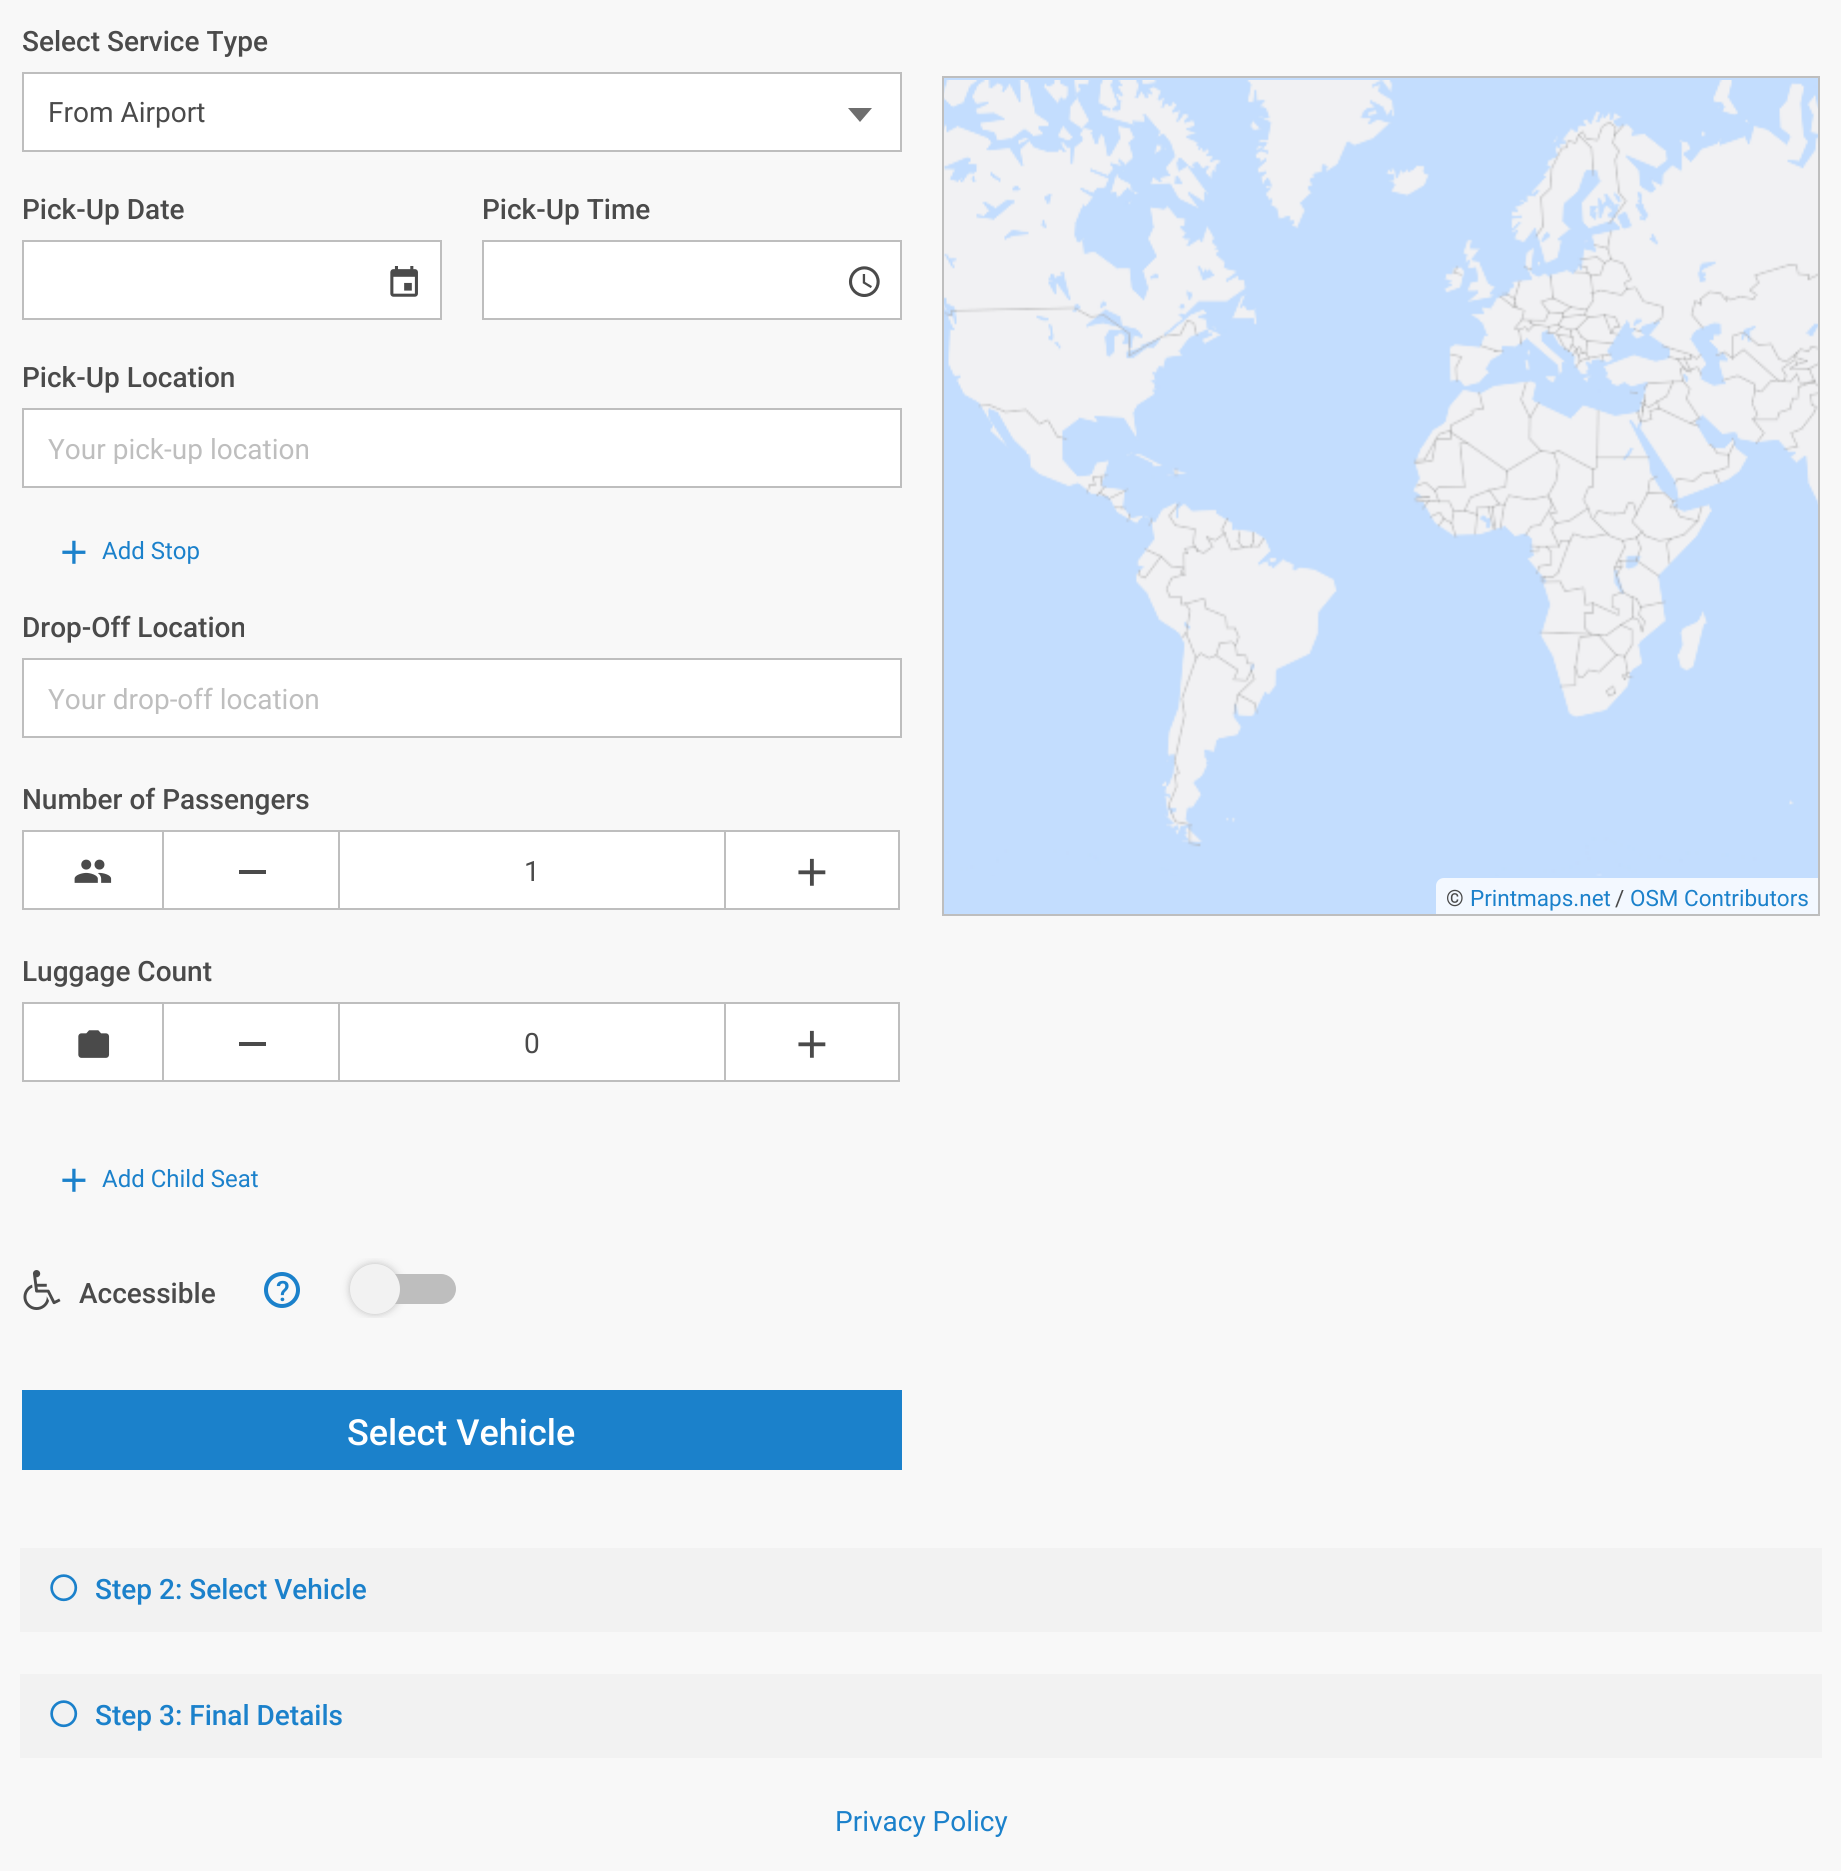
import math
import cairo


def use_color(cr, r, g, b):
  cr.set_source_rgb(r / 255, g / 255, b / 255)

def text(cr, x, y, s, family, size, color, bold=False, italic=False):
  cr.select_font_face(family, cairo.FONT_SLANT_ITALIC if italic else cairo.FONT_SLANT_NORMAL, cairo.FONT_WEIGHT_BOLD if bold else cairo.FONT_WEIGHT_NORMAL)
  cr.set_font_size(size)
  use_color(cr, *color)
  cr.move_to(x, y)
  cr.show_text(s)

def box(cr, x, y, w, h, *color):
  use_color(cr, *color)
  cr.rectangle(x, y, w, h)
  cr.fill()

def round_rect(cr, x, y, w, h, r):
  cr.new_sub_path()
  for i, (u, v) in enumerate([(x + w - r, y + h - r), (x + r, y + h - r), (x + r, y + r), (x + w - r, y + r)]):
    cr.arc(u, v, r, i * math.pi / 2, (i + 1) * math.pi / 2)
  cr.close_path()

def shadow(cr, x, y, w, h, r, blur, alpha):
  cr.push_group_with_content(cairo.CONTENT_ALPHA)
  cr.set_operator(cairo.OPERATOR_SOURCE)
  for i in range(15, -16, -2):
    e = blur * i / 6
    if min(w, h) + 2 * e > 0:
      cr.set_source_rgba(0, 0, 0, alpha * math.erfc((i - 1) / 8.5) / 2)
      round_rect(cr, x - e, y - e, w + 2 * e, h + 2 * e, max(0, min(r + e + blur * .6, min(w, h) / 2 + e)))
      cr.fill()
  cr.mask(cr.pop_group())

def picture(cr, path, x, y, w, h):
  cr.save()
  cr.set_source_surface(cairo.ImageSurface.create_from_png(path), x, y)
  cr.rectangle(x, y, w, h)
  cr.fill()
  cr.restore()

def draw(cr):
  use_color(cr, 248, 248, 248)
  cr.paint()
  use_color(cr, 255, 255, 255)
  cr.rectangle(23, 73, 878, 78)
  cr.fill_preserve()
  use_color(cr, 190, 190, 190)
  cr.stroke()
  use_color(cr, 110, 110, 110)
  cr.new_path()
  cr.move_to(848, 108)
  cr.line_to(872, 108)
  cr.line_to(860, 122)
  cr.close_path()
  cr.fill()
  box(cr, 24, 242, 416, 76, 255, 255, 255)
  box(cr, 22, 240, 420, 2, 190, 190, 190)
  box(cr, 440, 240, 2, 80, 190, 190, 190)
  box(cr, 22, 318, 420, 2, 190, 190, 190)
  picture(cr, "img_01.png", 390, 266, 28, 31)
  box(cr, 22, 240, 2, 80, 190, 190, 190)
  box(cr, 484, 242, 416, 76, 255, 255, 255)
  box(cr, 482, 240, 420, 2, 190, 190, 190)
  box(cr, 900, 240, 2, 80, 190, 190, 190)
  box(cr, 482, 318, 420, 2, 190, 190, 190)
  picture(cr, "img_02.png", 848, 266, 32, 31)
  box(cr, 482, 240, 2, 80, 190, 190, 190)
  use_color(cr, 255, 255, 255)
  cr.rectangle(23, 409, 878, 78)
  cr.fill_preserve()
  use_color(cr, 190, 190, 190)
  cr.stroke()
  picture(cr, "img_03.png", 62, 540, 24, 24)
  use_color(cr, 255, 255, 255)
  cr.rectangle(23, 659, 878, 78)
  cr.fill_preserve()
  use_color(cr, 190, 190, 190)
  cr.stroke()
  box(cr, 24, 832, 138, 76, 255, 255, 255)
  box(cr, 22, 830, 316, 2, 190, 190, 190)
  box(cr, 22, 908, 316, 2, 190, 190, 190)
  box(cr, 22, 830, 2, 80, 190, 190, 190)
  picture(cr, "img_04.png", 74, 859, 38, 24)
  box(cr, 164, 832, 174, 76, 255, 255, 255)
  box(cr, 162, 830, 2, 80, 190, 190, 190)
  box(cr, 239, 870, 27, 4, 74, 74, 74)
  use_color(cr, 255, 255, 255)
  cr.rectangle(725, 831, 174, 78)
  cr.fill_preserve()
  use_color(cr, 190, 190, 190)
  cr.stroke()
  use_color(cr, 255, 255, 255)
  cr.rectangle(339, 831, 386, 78)
  cr.fill_preserve()
  use_color(cr, 190, 190, 190)
  cr.stroke()
  picture(cr, "img_05.png", 798, 858, 28, 28)
  box(cr, 24, 1004, 138, 76, 255, 255, 255)
  box(cr, 22, 1002, 316, 2, 190, 190, 190)
  box(cr, 22, 1080, 316, 2, 190, 190, 190)
  box(cr, 22, 1002, 2, 80, 190, 190, 190)
  picture(cr, "img_06.png", 78, 1030, 32, 28)
  box(cr, 164, 1004, 174, 76, 255, 255, 255)
  box(cr, 162, 1002, 2, 80, 190, 190, 190)
  box(cr, 239, 1042, 27, 4, 74, 74, 74)
  use_color(cr, 255, 255, 255)
  cr.rectangle(725, 1003, 174, 78)
  cr.fill_preserve()
  use_color(cr, 190, 190, 190)
  cr.stroke()
  use_color(cr, 255, 255, 255)
  cr.rectangle(339, 1003, 386, 78)
  cr.fill_preserve()
  use_color(cr, 190, 190, 190)
  cr.stroke()
  picture(cr, "img_05.png", 798, 1030, 28, 28)
  picture(cr, "img_03.png", 62, 1168, 24, 24)
  picture(cr, "img_07.png", 23, 1270, 38, 40)
  cr.arc(282, 1290, 16, 0, 2 * math.pi)
  use_color(cr, 27, 129, 203)
  cr.set_line_width(4)
  cr.stroke()
  use_color(cr, 190, 190, 190)
  round_rect(cr, 356, 1274, 100, 30, 15)
  cr.fill()
  cr.save()
  cr.rectangle(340, 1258, 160, 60)
  cr.clip()
  use_color(cr, 190, 190, 190)
  shadow(cr, 350, 1264, 50, 50, 25, 4, 1)
  cr.restore()
  use_color(cr, 242, 242, 242)
  cr.arc(375, 1289, 25, 0, 2 * math.pi)
  cr.fill()
  box(cr, 22, 1390, 880, 80, 27, 129, 203)
  cr.rectangle(943, 77, 876, 838)
  use_color(cr, 190, 190, 190)
  cr.set_line_width(2)
  cr.stroke()
  box(cr, 944, 78, 874, 836, 195, 221, 254)
  picture(cr, "img_08.png", 944, 80, 874, 796)
  use_color(cr, 243, 248, 255)
  cr.new_path()
  cr.move_to(1444, 878)
  cr.line_to(1818, 878)
  cr.line_to(1818, 914)
  cr.line_to(1436, 914)
  cr.line_to(1436, 886)
  cr.curve_to(1436, 881.5, 1439.5, 878, 1444, 878)
  cr.close_path()
  cr.fill()
  box(cr, 20, 1548, 1802, 84, 242, 242, 242)
  picture(cr, "img_09.png", 50, 1574, 28, 28)
  box(cr, 20, 1674, 1802, 84, 242, 242, 242)
  picture(cr, "img_09.png", 50, 1700, 28, 28)
  text(cr, 22, 51, "Select Service Type", "Roboto Medium", 28, (74, 74, 74))
  text(cr, 48, 122, "From Airport", "Roboto", 28, (74, 74, 74))
  text(cr, 22, 219, "Pick-Up Date", "Roboto Medium", 28, (74, 74, 74))
  text(cr, 482, 219, "Pick-Up Time", "Roboto Medium", 28, (74, 74, 74))
  text(cr, 22, 387, "Pick-Up Location", "Roboto Medium", 28, (74, 74, 74))
  cr.save()
  cr.rectangle(48, 432, 828, 32)
  cr.clip()
  text(cr, 48, 459, "Your pick-up location", "Roboto", 28, (190, 190, 190))
  cr.restore()
  text(cr, 102, 559, "Add Stop", "Roboto", 24, (27, 129, 203))
  text(cr, 22, 637, "Drop-Off Location", "Roboto Medium", 28, (74, 74, 74))
  cr.save()
  cr.rectangle(48, 682, 828, 32)
  cr.clip()
  text(cr, 48, 709, "Your drop-off location", "Roboto", 28, (190, 190, 190))
  cr.restore()
  text(cr, 22, 809, "Number of Passengers", "Roboto Medium", 28, (74, 74, 74))
  text(cr, 524, 881, "1", "Roboto", 28, (74, 74, 74))
  text(cr, 22, 981, "Luggage Count", "Roboto Medium", 28, (74, 74, 74))
  text(cr, 524, 1053, "0", "Roboto", 28, (74, 74, 74))
  text(cr, 102, 1187, "Add Child Seat", "Roboto", 24, (27, 129, 203))
  text(cr, 79, 1303, "Accessible", "Roboto Medium", 28, (74, 74, 74))
  text(cr, 276, 1301, "?", "Roboto Medium", 28, (27, 129, 203))
  text(cr, 347, 1445, "Select Vehicle", "Roboto Medium", 36, (255, 255, 255))
  text(cr, 1446, 906, "©", "Roboto", 22.5, (74, 74, 74))
  text(cr, 1470, 906, "Printmaps.net", "Roboto", 22.5, (27, 129, 203))
  text(cr, 1615, 906, "/", "Roboto", 22.5, (74, 74, 74))
  text(cr, 1630, 906, "OSM Contributors", "Roboto", 22.5, (27, 129, 203))
  text(cr, 95, 1599, "Step 2: Select Vehicle", "Roboto Medium", 28, (27, 129, 203))
  text(cr, 95, 1725, "Step 3: Final Details", "Roboto Medium", 28, (27, 129, 203))
  text(cr, 835, 1831, "Privacy Policy", "Roboto", 28, (27, 129, 203))


surface = cairo.ImageSurface(cairo.FORMAT_RGB24, 1841, 1871)
cr = cairo.Context(surface)
options = cairo.FontOptions()
options.set_hint_metrics(cairo.HINT_METRICS_OFF)
options.set_hint_style(cairo.HINT_STYLE_NONE)
cr.set_font_options(options)
cr.set_miter_limit(4)
draw(cr)
surface.write_to_png("out.png")
